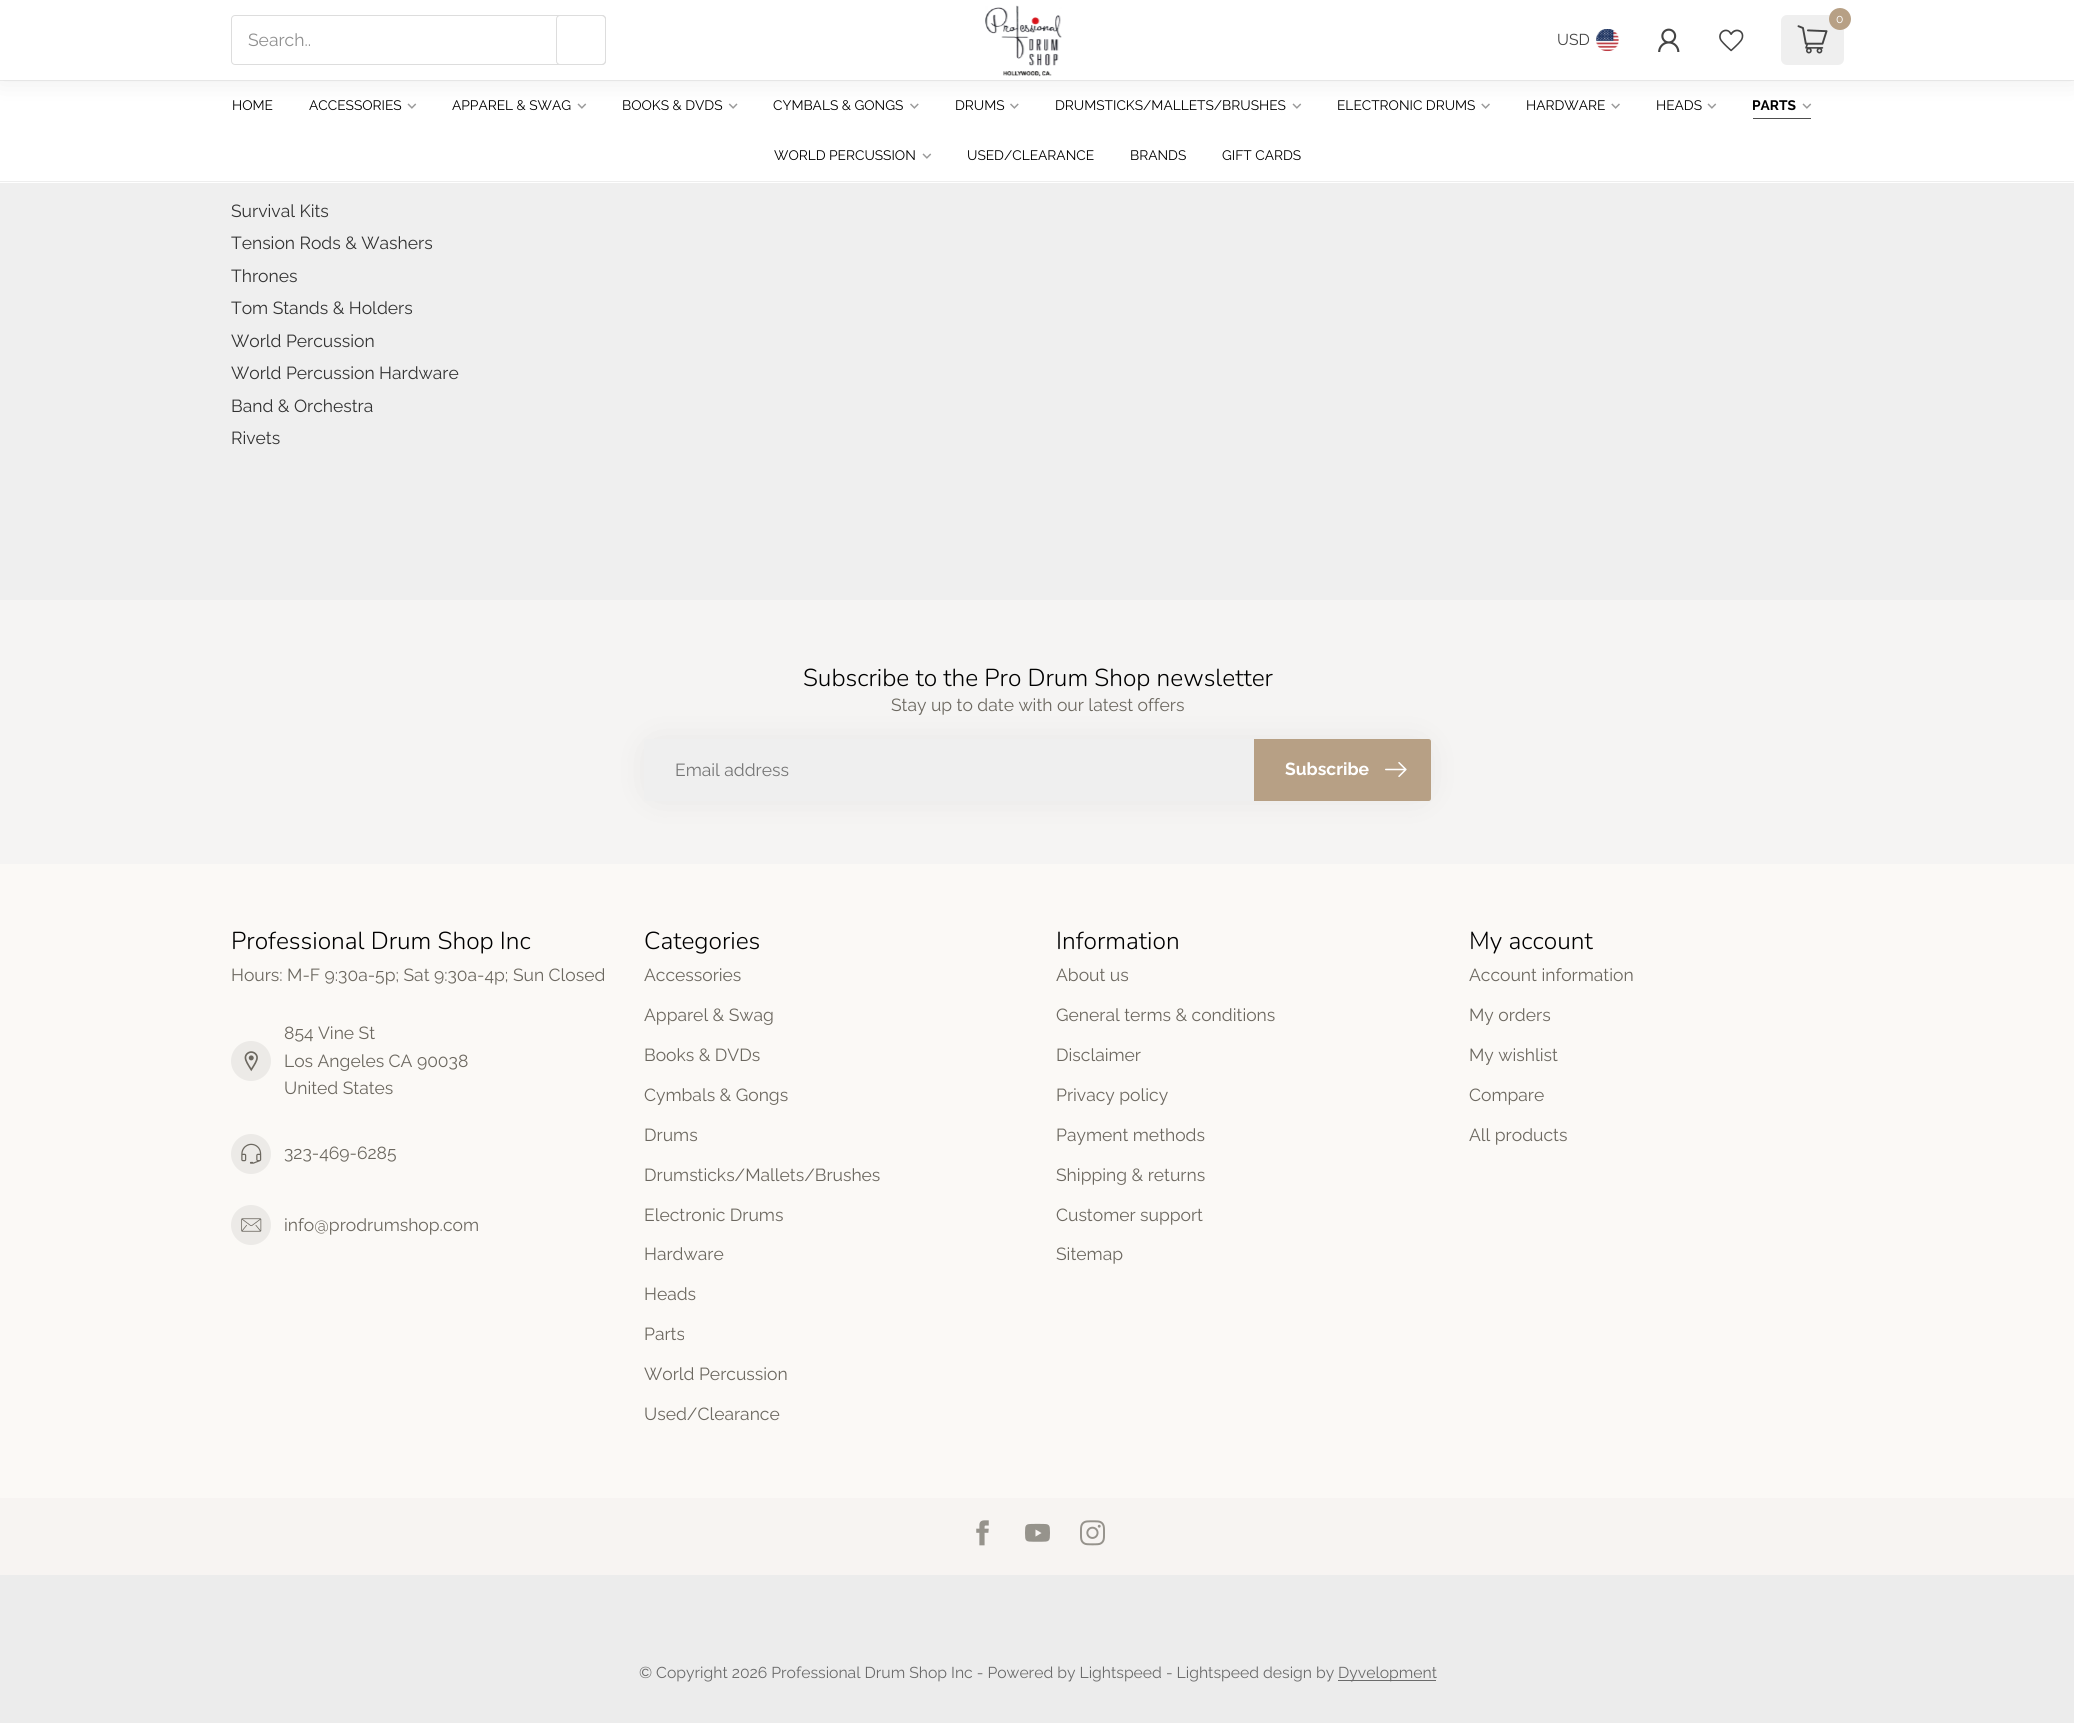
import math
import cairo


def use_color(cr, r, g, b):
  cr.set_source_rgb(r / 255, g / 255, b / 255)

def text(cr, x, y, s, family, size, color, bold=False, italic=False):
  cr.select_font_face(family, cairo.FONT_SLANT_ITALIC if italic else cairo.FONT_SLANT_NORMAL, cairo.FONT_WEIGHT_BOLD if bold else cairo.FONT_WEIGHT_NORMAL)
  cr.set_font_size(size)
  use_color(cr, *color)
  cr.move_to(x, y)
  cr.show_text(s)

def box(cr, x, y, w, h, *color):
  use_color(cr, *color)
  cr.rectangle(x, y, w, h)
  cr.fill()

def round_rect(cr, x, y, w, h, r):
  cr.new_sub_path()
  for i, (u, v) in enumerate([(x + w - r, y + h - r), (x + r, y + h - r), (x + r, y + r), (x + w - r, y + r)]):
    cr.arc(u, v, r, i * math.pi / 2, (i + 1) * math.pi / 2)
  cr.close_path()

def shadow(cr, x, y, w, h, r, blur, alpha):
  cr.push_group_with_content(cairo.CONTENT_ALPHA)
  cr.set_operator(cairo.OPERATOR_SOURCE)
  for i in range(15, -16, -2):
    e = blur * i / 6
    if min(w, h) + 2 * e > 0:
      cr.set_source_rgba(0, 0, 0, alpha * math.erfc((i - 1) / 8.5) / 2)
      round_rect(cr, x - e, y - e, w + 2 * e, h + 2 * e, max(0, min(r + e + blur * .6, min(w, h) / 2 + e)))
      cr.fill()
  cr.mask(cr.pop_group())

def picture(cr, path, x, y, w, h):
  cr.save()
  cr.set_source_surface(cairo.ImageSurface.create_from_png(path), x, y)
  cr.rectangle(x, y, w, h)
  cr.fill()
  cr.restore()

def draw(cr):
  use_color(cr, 239, 239, 239)
  cr.paint()
  box(cr, 0, 81, 2074, 102, 255, 255, 255)
  picture(cr, "img_06.png", 407, 103, 10, 6)
  picture(cr, "img_06.png", 577, 103, 10, 6)
  picture(cr, "img_07.png", 728, 103, 10, 6)
  picture(cr, "img_08.png", 910, 103, 9, 6)
  picture(cr, "img_08.png", 1010, 103, 9, 6)
  picture(cr, "img_06.png", 1292, 103, 10, 6)
  picture(cr, "img_09.png", 1481, 103, 9, 6)
  picture(cr, "img_09.png", 1611, 103, 9, 6)
  picture(cr, "img_06.png", 1707, 103, 10, 6)
  picture(cr, "img_06.png", 1802, 103, 10, 6)
  box(cr, 1753, 118, 58, 1, 77, 77, 77)
  use_color(cr, 0, 0, 0)
  shadow(cr, 0, -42, 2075, 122, 0, 14, 0.08)
  box(cr, 0, 0, 2074, 80, 255, 255, 255)
  round_rect(cr, 231.5, 15.5, 374, 49, 3.5)
  use_color(cr, 221, 221, 221)
  cr.set_line_width(1)
  cr.stroke()
  round_rect(cr, 556.5, 15.5, 49, 49, 3.5)
  cr.stroke()
  picture(cr, "img_01.png", 985, 5, 77, 72)
  use_color(cr, 239, 239, 239)
  round_rect(cr, 1781, 15, 63, 50, 6)
  cr.fill()
  use_color(cr, 183, 160, 133)
  cr.arc(1840, 19, 11, 0, 2 * math.pi)
  cr.fill()
  picture(cr, "img_02.png", 1797, 25, 31, 29)
  picture(cr, "img_03.png", 1596, 29, 23, 23)
  picture(cr, "img_04.png", 1658, 28, 22, 24)
  picture(cr, "img_05.png", 1719, 29, 25, 23)
  box(cr, 0, 181, 2074, 1, 238, 238, 238)
  picture(cr, "img_06.png", 922, 153, 10, 6)
  box(cr, 0, 864, 2074, 634, 251, 249, 246)
  box(cr, 0, 600, 2074, 264, 245, 244, 243)
  use_color(cr, 0, 0, 0)
  shadow(cr, 656, 751, 763, 38, 0, 19, 0.1)
  use_color(cr, 239, 239, 239)
  cr.new_path()
  cr.move_to(646.5, 739)
  cr.line_to(1254, 739)
  cr.line_to(1254, 801)
  cr.line_to(646.5, 801)
  cr.curve_to(645, 801, 644, 800, 644, 798.5)
  cr.line_to(644, 741.5)
  cr.curve_to(644, 740, 645, 739, 646.5, 739)
  cr.close_path()
  cr.fill()
  use_color(cr, 183, 160, 133)
  cr.new_path()
  cr.move_to(1254, 739)
  cr.line_to(1428.5, 739)
  cr.curve_to(1430, 739, 1431, 740, 1431, 741.5)
  cr.line_to(1431, 798.5)
  cr.curve_to(1431, 800, 1430, 801, 1428.5, 801)
  cr.line_to(1254, 801)
  cr.close_path()
  cr.fill()
  picture(cr, "img_10.png", 1385, 762, 22, 15)
  use_color(cr, 236, 234, 231)
  cr.arc(251, 1061, 20, 0, 2 * math.pi)
  cr.fill()
  picture(cr, "img_11.png", 244, 1051, 14, 21)
  cr.arc(251, 1154, 20, 0, 2 * math.pi)
  cr.fill()
  picture(cr, "img_12.png", 241, 1143, 21, 21)
  cr.arc(251, 1225, 20, 0, 2 * math.pi)
  cr.fill()
  picture(cr, "img_13.png", 241, 1218, 21, 14)
  box(cr, 0, 1498, 2074, 77, 247, 244, 242)
  picture(cr, "img_14.png", 976, 1520, 13, 26)
  picture(cr, "img_15.png", 1025, 1523, 25, 19)
  picture(cr, "img_16.png", 1080, 1520, 25, 26)
  box(cr, 0, 1575, 2074, 148, 236, 236, 236)
  box(cr, 1338, 1680, 98, 1, 107, 107, 107)
  text(cr, 248, 46, "Search..", "Raleway", 17.5, (143, 143, 143))
  text(cr, 1836, 23, "0", "Raleway", 12, (255, 255, 255))
  text(cr, 1557, 45, "USD", "Raleway", 15.75, (68, 68, 68))
  text(cr, 232, 110, "HOME", "Raleway", 13.75, (0, 0, 0))
  text(cr, 309, 110, "ACCESSORIES", "Raleway", 13.75, (0, 0, 0))
  text(cr, 452, 110, "APPAREL & SWAG", "Raleway", 13.75, (0, 0, 0))
  text(cr, 622, 110, "BOOKS & DVDS", "Raleway", 13.75, (0, 0, 0))
  text(cr, 773, 110, "CYMBALS & GONGS", "Raleway", 13.75, (0, 0, 0))
  text(cr, 955, 110, "DRUMS", "Raleway", 13.75, (0, 0, 0))
  text(cr, 1055, 110, "DRUMSTICKS/MALLETS/BRUSHES", "Raleway", 13.75, (0, 0, 0))
  text(cr, 1337, 110, "ELECTRONIC DRUMS", "Raleway", 13.75, (0, 0, 0))
  text(cr, 1526, 110, "HARDWARE", "Raleway", 13.75, (0, 0, 0))
  text(cr, 1656, 110, "HEADS", "Raleway", 13.75, (0, 0, 0))
  text(cr, 1752, 110, "PARTS", "Raleway", 13.75, (0, 0, 0), bold=True)
  text(cr, 774, 160, "WORLD PERCUSSION", "Raleway", 13.75, (0, 0, 0))
  text(cr, 967, 160, "USED/CLEARANCE", "Raleway", 13.75, (0, 0, 0))
  text(cr, 1130, 160, "BRANDS", "Raleway", 13.75, (0, 0, 0))
  text(cr, 1222, 160, "GIFT CARDS", "Raleway", 13.75, (0, 0, 0))
  text(cr, 231, 217, "Survival Kits", "Raleway", 17.5, (51, 51, 51))
  text(cr, 231, 249, "Tension Rods & Washers", "Raleway", 17.5, (51, 51, 51))
  text(cr, 231, 282, "Thrones", "Raleway", 17.5, (51, 51, 51))
  text(cr, 231, 314, "Tom Stands & Holders", "Raleway", 17.5, (51, 51, 51))
  text(cr, 231, 347, "World Percussion", "Raleway", 17.5, (51, 51, 51))
  text(cr, 231, 379, "World Percussion Hardware", "Raleway", 17.5, (51, 51, 51))
  text(cr, 231, 412, "Band & Orchestra", "Raleway", 17.5, (51, 51, 51))
  text(cr, 231, 444, "Rivets", "Raleway", 17.5, (51, 51, 51))
  text(cr, 803, 686, "Subscribe to the Pro Drum Shop newsletter", "Nunito Light", 24.5, (0, 0, 0))
  text(cr, 891, 711, "Stay up to date with our latest offers", "Raleway", 17.5, (108, 104, 96))
  text(cr, 675, 776, "Email address", "Raleway", 17.5, (117, 117, 117))
  text(cr, 1285, 775, "Subscribe", "Raleway", 17.5, (255, 255, 255), bold=True)
  text(cr, 231, 949, "Professional Drum Shop Inc", "Nunito Light", 24.5, (0, 0, 0))
  text(cr, 231, 981, "Hours: M-F 9:30a-5p; Sat 9:30a-4p; Sun Closed", "Raleway", 17.5, (108, 104, 96))
  text(cr, 284, 1039, "854 Vine St", "Raleway", 17.5, (108, 104, 96))
  text(cr, 284, 1067, "Los Angeles CA 90038", "Raleway", 17.5, (108, 104, 96))
  text(cr, 284, 1094, "United States", "Raleway", 17.5, (108, 104, 96))
  text(cr, 284, 1159, "323-469-6285", "Raleway", 17.5, (108, 104, 96))
  text(cr, 284, 1231, "info@prodrumshop.com", "Raleway", 17.5, (108, 104, 96))
  text(cr, 644, 949, "Categories", "Nunito Light", 24.5, (0, 0, 0))
  text(cr, 644, 981, "Accessories", "Raleway", 17.5, (108, 104, 96))
  text(cr, 644, 1021, "Apparel & Swag", "Raleway", 17.5, (108, 104, 96))
  text(cr, 644, 1061, "Books & DVDs", "Raleway", 17.5, (108, 104, 96))
  text(cr, 644, 1101, "Cymbals & Gongs", "Raleway", 17.5, (108, 104, 96))
  text(cr, 644, 1141, "Drums", "Raleway", 17.5, (108, 104, 96))
  text(cr, 644, 1181, "Drumsticks/Mallets/Brushes", "Raleway", 17.5, (108, 104, 96))
  text(cr, 644, 1221, "Electronic Drums", "Raleway", 17.5, (108, 104, 96))
  text(cr, 644, 1260, "Hardware", "Raleway", 17.5, (108, 104, 96))
  text(cr, 644, 1300, "Heads", "Raleway", 17.5, (108, 104, 96))
  text(cr, 644, 1340, "Parts", "Raleway", 17.5, (108, 104, 96))
  text(cr, 644, 1380, "World Percussion", "Raleway", 17.5, (108, 104, 96))
  text(cr, 644, 1420, "Used/Clearance", "Raleway", 17.5, (108, 104, 96))
  text(cr, 1056, 949, "Information", "Nunito Light", 24.5, (0, 0, 0))
  text(cr, 1056, 981, "About us", "Raleway", 17.5, (108, 104, 96))
  text(cr, 1056, 1021, "General terms & conditions", "Raleway", 17.5, (108, 104, 96))
  text(cr, 1056, 1061, "Disclaimer", "Raleway", 17.5, (108, 104, 96))
  text(cr, 1056, 1101, "Privacy policy", "Raleway", 17.5, (108, 104, 96))
  text(cr, 1056, 1141, "Payment methods", "Raleway", 17.5, (108, 104, 96))
  text(cr, 1056, 1181, "Shipping & returns", "Raleway", 17.5, (108, 104, 96))
  text(cr, 1056, 1221, "Customer support", "Raleway", 17.5, (108, 104, 96))
  text(cr, 1056, 1260, "Sitemap", "Raleway", 17.5, (108, 104, 96))
  text(cr, 1469, 949, "My account", "Nunito Light", 24.5, (0, 0, 0))
  text(cr, 1469, 981, "Account information", "Raleway", 17.5, (108, 104, 96))
  text(cr, 1469, 1021, "My orders", "Raleway", 17.5, (108, 104, 96))
  text(cr, 1469, 1061, "My wishlist", "Raleway", 17.5, (108, 104, 96))
  text(cr, 1469, 1101, "Compare", "Raleway", 17.5, (108, 104, 96))
  text(cr, 1469, 1141, "All products", "Raleway", 17.5, (108, 104, 96))
  text(cr, 639, 1678, "© Copyright 2026 Professional Drum Shop Inc - Powered by Lightspeed - Lightspeed design by", "Raleway", 15.75, (107, 107, 107))
  text(cr, 1338, 1678, "Dyvelopment", "Raleway", 15.75, (107, 107, 107))


surface = cairo.ImageSurface(cairo.FORMAT_RGB24, 2074, 1723)
cr = cairo.Context(surface)
options = cairo.FontOptions()
options.set_hint_metrics(cairo.HINT_METRICS_OFF)
options.set_hint_style(cairo.HINT_STYLE_NONE)
cr.set_font_options(options)
cr.set_miter_limit(4)
draw(cr)
surface.write_to_png("out.png")
